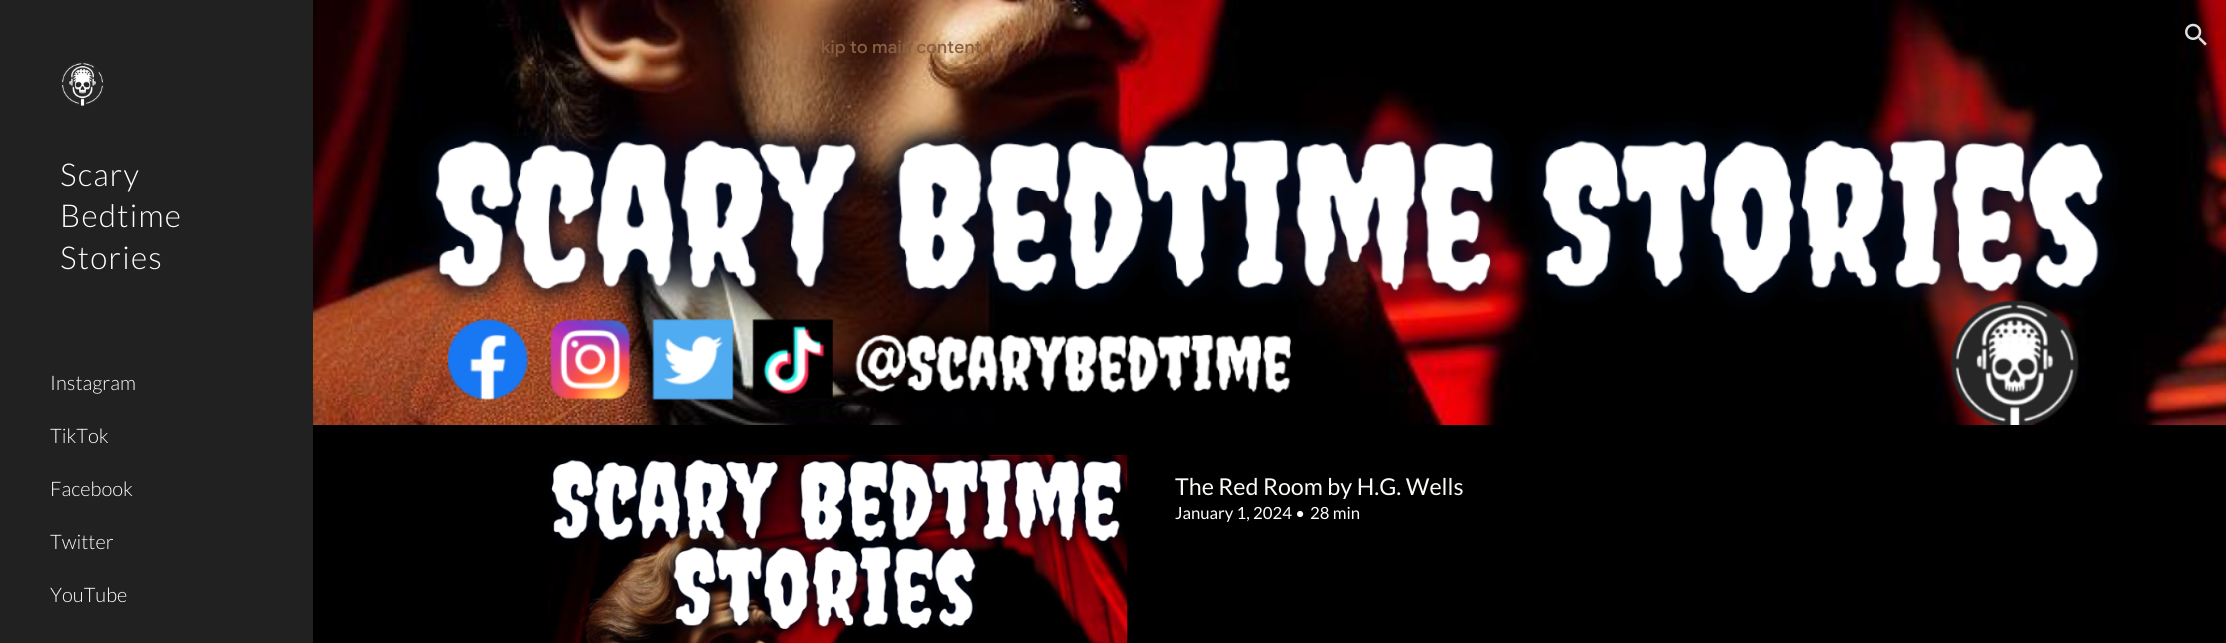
import math
import cairo


def use_color(cr, r, g, b):
  cr.set_source_rgb(r / 255, g / 255, b / 255)

def text(cr, x, y, s, family, size, color, bold=False, italic=False):
  cr.select_font_face(family, cairo.FONT_SLANT_ITALIC if italic else cairo.FONT_SLANT_NORMAL, cairo.FONT_WEIGHT_BOLD if bold else cairo.FONT_WEIGHT_NORMAL)
  cr.set_font_size(size)
  use_color(cr, *color)
  cr.move_to(x, y)
  cr.show_text(s)

def spaced_text(cr, x, y, s, letter, word):
  cr.move_to(x, y)
  for ch in s:
    cr.show_text(ch)
    cr.rel_move_to(letter + word * (ch == ' '), 0)

def box(cr, x, y, w, h, *color):
  use_color(cr, *color)
  cr.rectangle(x, y, w, h)
  cr.fill()

def picture(cr, path, x, y, w, h):
  cr.save()
  cr.set_source_surface(cairo.ImageSurface.create_from_png(path), x, y)
  cr.rectangle(x, y, w, h)
  cr.fill()
  cr.restore()

def draw(cr):
  use_color(cr, 255, 255, 255)
  cr.paint()
  picture(cr, "img_03.png", 313, 0, 1913, 425)
  picture(cr, "img_01.png", 2185, 23, 22, 23)
  box(cr, 0, 0, 313, 643, 33, 33, 33)
  picture(cr, "img_02.png", 61, 62, 43, 44)
  box(cr, 313, 425, 1913, 218, 0, 0, 0)
  picture(cr, "img_04.png", 548, 455, 580, 188)
  cr.select_font_face("Google Sans Medium")
  cr.set_font_size(17.5)
  use_color(cr, 137, 95, 66)
  spaced_text(cr, 821, 53, "kip to main content", 0.2, 0)
  cr.select_font_face("Lato Light")
  cr.set_font_size(31.5)
  use_color(cr, 255, 255, 255)
  spaced_text(cr, 60, 186, "Scary", 1.25, 0)
  spaced_text(cr, 60, 227, "Bedtime", 1.25, 0)
  spaced_text(cr, 60, 269, "Stories", 1.25, 0)
  text(cr, 50, 390, "Instagram", "Lato Light", 20, (255, 255, 255))
  text(cr, 50, 443, "TikTok", "Lato Light", 20, (255, 255, 255))
  text(cr, 50, 496, "Facebook", "Lato Light", 20, (255, 255, 255))
  text(cr, 50, 549, "Twitter", "Lato Light", 20, (255, 255, 255))
  text(cr, 50, 602, "YouTube", "Lato Light", 20, (255, 255, 255))
  text(cr, 1175, 495, "The Red Room by H.G. Wells", "Lato", 23.25, (250, 251, 246))
  text(cr, 1175, 519, "January 1, 2024 •", "Lato", 16.75, (255, 255, 255))
  text(cr, 1310, 519, "28 min", "Lato", 16.75, (255, 255, 255))


surface = cairo.ImageSurface(cairo.FORMAT_RGB24, 2226, 643)
cr = cairo.Context(surface)
options = cairo.FontOptions()
options.set_hint_metrics(cairo.HINT_METRICS_OFF)
options.set_hint_style(cairo.HINT_STYLE_NONE)
cr.set_font_options(options)
cr.set_miter_limit(4)
draw(cr)
surface.write_to_png("out.png")
